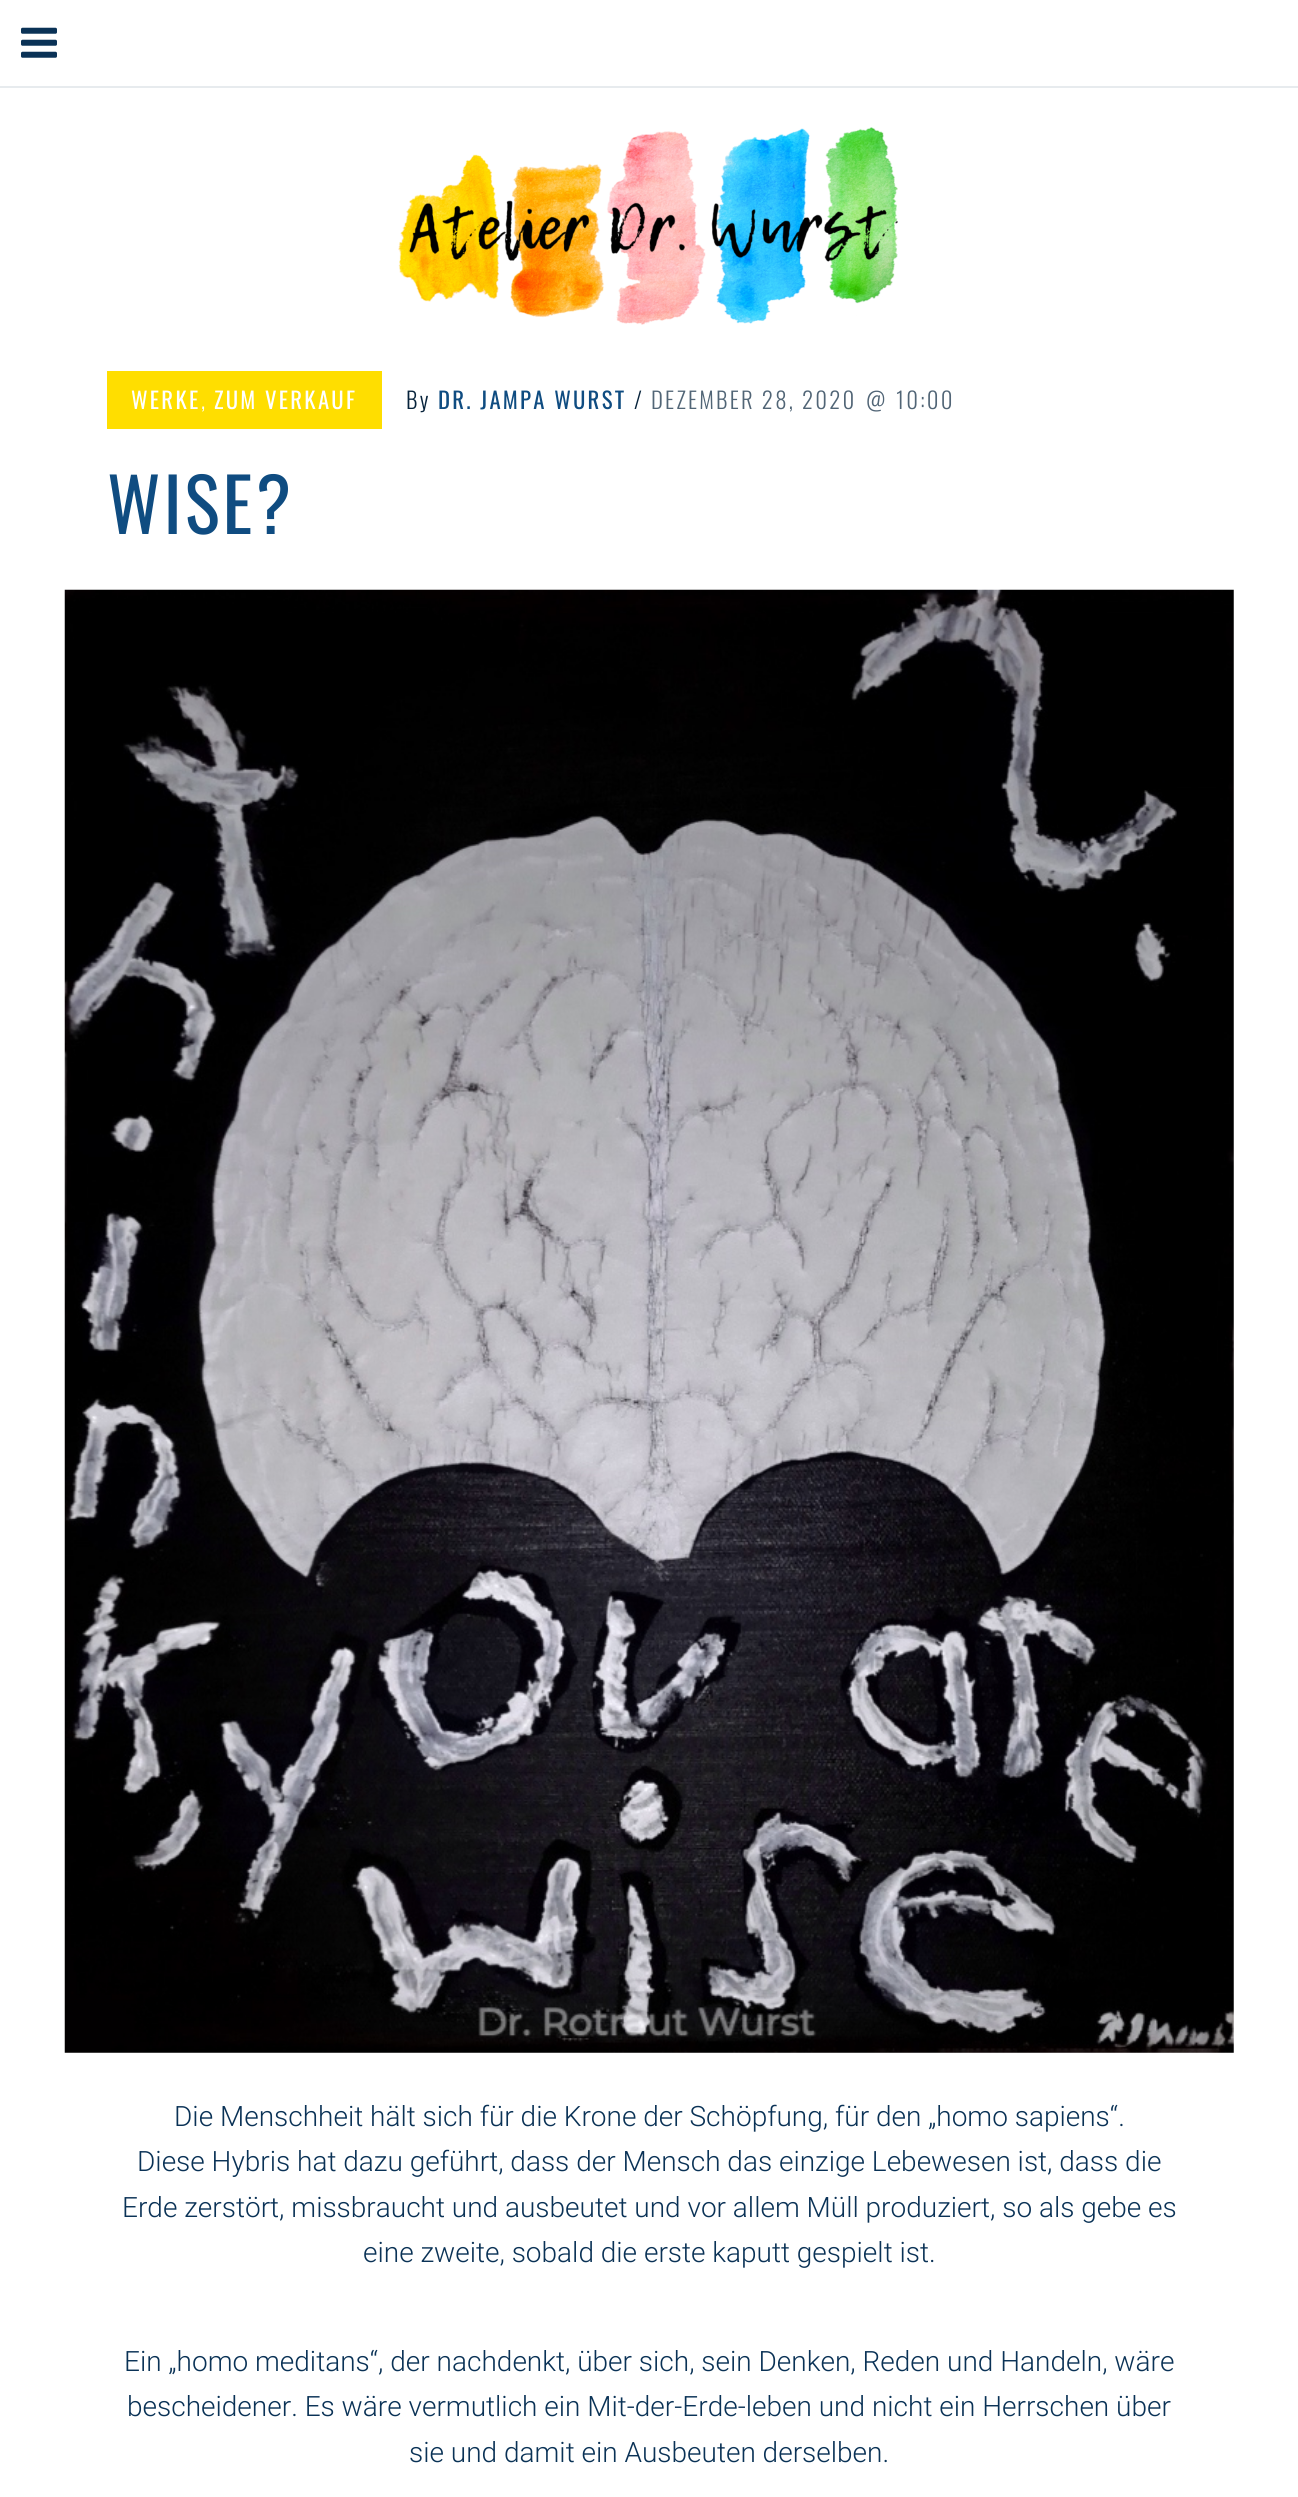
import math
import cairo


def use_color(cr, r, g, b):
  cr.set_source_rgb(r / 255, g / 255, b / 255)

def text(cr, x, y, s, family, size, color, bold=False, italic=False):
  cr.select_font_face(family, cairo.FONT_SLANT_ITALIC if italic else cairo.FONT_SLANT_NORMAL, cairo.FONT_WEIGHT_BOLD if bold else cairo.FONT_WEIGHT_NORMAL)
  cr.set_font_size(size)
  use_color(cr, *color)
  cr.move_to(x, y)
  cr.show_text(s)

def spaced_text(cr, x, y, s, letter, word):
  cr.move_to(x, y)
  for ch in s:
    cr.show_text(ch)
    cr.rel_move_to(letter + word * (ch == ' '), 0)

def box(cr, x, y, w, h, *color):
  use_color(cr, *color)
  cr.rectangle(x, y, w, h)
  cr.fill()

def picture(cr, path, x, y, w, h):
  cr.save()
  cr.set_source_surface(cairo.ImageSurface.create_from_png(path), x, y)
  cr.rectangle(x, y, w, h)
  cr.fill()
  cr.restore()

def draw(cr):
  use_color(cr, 255, 255, 255)
  cr.paint()
  picture(cr, "img_01.png", 21, 27, 36, 31)
  box(cr, 0, 86, 1298, 2, 231, 235, 238)
  picture(cr, "img_02.png", 398, 127, 500, 198)
  box(cr, 107, 371, 275, 58, 255, 222, 0)
  picture(cr, "img_03.png", 64, 589, 1170, 1464)
  cr.select_font_face("Oswald")
  cr.set_font_size(22.75)
  use_color(cr, 255, 255, 255)
  spaced_text(cr, 131, 409, "WERKE", 2.25, 0)
  cr.select_font_face("Oswald Light")
  spaced_text(cr, 201, 409, ",", 2.25, 0)
  cr.select_font_face("Oswald")
  spaced_text(cr, 214, 409, "ZUM VERKAUF", 2.25, 0)
  cr.select_font_face("Oswald Light")
  use_color(cr, 7, 35, 59)
  spaced_text(cr, 406, 409, "By", 2.25, 0)
  cr.select_font_face("Oswald")
  use_color(cr, 15, 76, 129)
  spaced_text(cr, 438, 409, "DR. JAMPA WURST", 2.25, 0)
  cr.select_font_face("Oswald Light")
  use_color(cr, 7, 35, 59)
  spaced_text(cr, 634, 409, "/", 2.25, 0)
  use_color(cr, 81, 101, 118)
  spaced_text(cr, 651, 409, "DEZEMBER 28, 2020", 2.25, 0)
  spaced_text(cr, 866, 409, "@", 2.25, 0)
  spaced_text(cr, 896, 409, "10:00", 2.25, 0)
  cr.select_font_face("Oswald")
  cr.set_font_size(73.5)
  use_color(cr, 15, 76, 129)
  spaced_text(cr, 107, 534, "WISE?", 3, 0)
  text(cr, 174, 2126, "Die Menschheit hält sich für die Krone der Schöpfung, für den „homo sapiens“.", "Roboto Light", 28, (10, 50, 86))
  text(cr, 137, 2171, "Diese Hybris hat dazu geführt, dass der Mensch das einzige Lebewesen ist, dass die", "Roboto Light", 28, (10, 50, 86))
  text(cr, 122, 2217, "Erde zerstört, missbraucht und ausbeutet und vor allem Müll produziert, so als gebe es", "Roboto Light", 28, (10, 50, 86))
  text(cr, 363, 2262, "eine zweite, sobald die erste kaputt gespielt ist.", "Roboto Light", 28, (10, 50, 86))
  text(cr, 124, 2371, "Ein „homo meditans“, der nachdenkt, über sich, sein Denken, Reden und Handeln, wäre", "Roboto Light", 28, (10, 50, 86))
  text(cr, 127, 2416, "bescheidener. Es wäre vermutlich ein Mit-der-Erde-leben und nicht ein Herrschen über", "Roboto Light", 28, (10, 50, 86))
  text(cr, 409, 2462, "sie und damit ein Ausbeuten derselben.", "Roboto Light", 28, (10, 50, 86))


surface = cairo.ImageSurface(cairo.FORMAT_RGB24, 1298, 2497)
cr = cairo.Context(surface)
options = cairo.FontOptions()
options.set_hint_metrics(cairo.HINT_METRICS_OFF)
options.set_hint_style(cairo.HINT_STYLE_NONE)
cr.set_font_options(options)
cr.set_miter_limit(4)
draw(cr)
surface.write_to_png("out.png")
